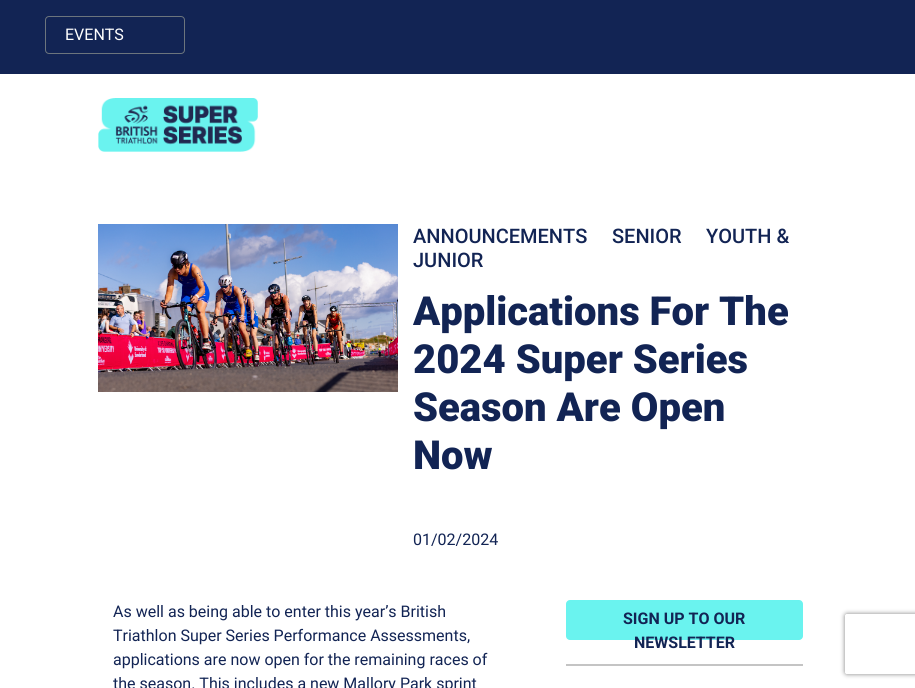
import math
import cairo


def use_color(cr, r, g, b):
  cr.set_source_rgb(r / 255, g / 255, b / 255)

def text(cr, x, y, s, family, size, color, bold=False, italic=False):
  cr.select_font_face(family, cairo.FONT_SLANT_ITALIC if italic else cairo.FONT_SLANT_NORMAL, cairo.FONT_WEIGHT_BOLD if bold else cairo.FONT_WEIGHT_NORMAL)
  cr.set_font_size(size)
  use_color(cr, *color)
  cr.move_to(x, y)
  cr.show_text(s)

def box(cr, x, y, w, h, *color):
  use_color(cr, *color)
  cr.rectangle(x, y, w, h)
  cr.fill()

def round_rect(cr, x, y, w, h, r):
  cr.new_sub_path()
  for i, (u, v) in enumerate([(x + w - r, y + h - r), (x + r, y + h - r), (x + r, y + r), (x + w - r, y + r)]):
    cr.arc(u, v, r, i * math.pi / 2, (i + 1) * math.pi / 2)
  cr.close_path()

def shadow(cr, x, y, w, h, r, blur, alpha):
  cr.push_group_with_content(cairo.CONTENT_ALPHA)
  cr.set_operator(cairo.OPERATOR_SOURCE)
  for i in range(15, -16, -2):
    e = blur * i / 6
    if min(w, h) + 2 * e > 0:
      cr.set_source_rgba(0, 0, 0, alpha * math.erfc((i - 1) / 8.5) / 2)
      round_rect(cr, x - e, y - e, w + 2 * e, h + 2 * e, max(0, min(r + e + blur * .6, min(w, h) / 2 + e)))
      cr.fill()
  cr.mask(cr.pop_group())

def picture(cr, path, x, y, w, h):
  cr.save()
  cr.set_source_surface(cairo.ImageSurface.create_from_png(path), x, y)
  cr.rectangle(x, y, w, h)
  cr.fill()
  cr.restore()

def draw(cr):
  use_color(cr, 255, 255, 255)
  cr.paint()
  box(cr, 0, 0, 915, 74, 18, 36, 84)
  round_rect(cr, 45.5, 16.5, 139, 37, 3.5)
  use_color(cr, 108, 117, 125)
  cr.set_line_width(1)
  cr.stroke()
  picture(cr, "img_01.png", 98, 98, 160, 54)
  picture(cr, "img_02.png", 98, 224, 300, 168)
  use_color(cr, 106, 243, 239)
  round_rect(cr, 566, 600, 237, 40, 4)
  cr.fill()
  box(cr, 566, 664, 237, 2, 196, 196, 196)
  cr.save()
  cr.set_fill_rule(cairo.FILL_RULE_EVEN_ODD)
  cr.new_path()
  cr.move_to(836, 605)
  cr.line_to(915, 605)
  cr.line_to(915, 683)
  cr.line_to(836, 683)
  cr.close_path()
  cr.move_to(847, 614)
  cr.line_to(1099, 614)
  cr.curve_to(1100, 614, 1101, 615, 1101, 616)
  cr.line_to(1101, 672)
  cr.curve_to(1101, 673, 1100, 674, 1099, 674)
  cr.line_to(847, 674)
  cr.curve_to(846, 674, 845, 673, 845, 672)
  cr.line_to(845, 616)
  cr.curve_to(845, 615, 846, 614, 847, 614)
  cr.close_path()
  cr.clip()
  use_color(cr, 128, 128, 128)
  shadow(cr, 845, 614, 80, 60, 2, 2.5, 1)
  cr.restore()
  text(cr, 65, 40, "EVENTS", "Roboto", 16, (255, 255, 255))
  text(cr, 413, 243, "ANNOUNCEMENTS", "Roboto Medium", 20, (18, 36, 84))
  text(cr, 612, 243, "SENIOR", "Roboto Medium", 20, (18, 36, 84))
  text(cr, 706, 243, "YOUTH &", "Roboto Medium", 20, (18, 36, 84))
  text(cr, 413, 267, "JUNIOR", "Roboto Medium", 20, (18, 36, 84))
  text(cr, 413, 325, "Applications For The", "Roboto Black", 40, (18, 36, 84))
  text(cr, 413, 373, "2024 Super Series", "Roboto Black", 40, (18, 36, 84))
  text(cr, 413, 421, "Season Are Open", "Roboto Black", 40, (18, 36, 84))
  text(cr, 413, 469, "Now", "Roboto Black", 40, (18, 36, 84))
  text(cr, 413, 545, "01/02/2024", "Roboto", 16, (18, 36, 84))
  text(cr, 113, 617, "As well as being able to enter this year’s British", "Roboto", 16, (18, 36, 84))
  text(cr, 113, 641, "Triathlon Super Series Performance Assessments,", "Roboto", 16, (18, 36, 84))
  text(cr, 113, 665, "applications are now open for the remaining races of", "Roboto", 16, (18, 36, 84))
  text(cr, 113, 689, "the season. This includes a new Mallory Park sprint", "Roboto", 16, (18, 36, 84))
  text(cr, 623, 624, "SIGN UP TO OUR", "Roboto", 16, (18, 36, 84), bold=True)
  text(cr, 634, 648, "NEWSLETTER", "Roboto", 16, (18, 36, 84), bold=True)


surface = cairo.ImageSurface(cairo.FORMAT_RGB24, 915, 688)
cr = cairo.Context(surface)
options = cairo.FontOptions()
options.set_hint_metrics(cairo.HINT_METRICS_OFF)
options.set_hint_style(cairo.HINT_STYLE_NONE)
cr.set_font_options(options)
cr.set_miter_limit(4)
draw(cr)
surface.write_to_png("out.png")
